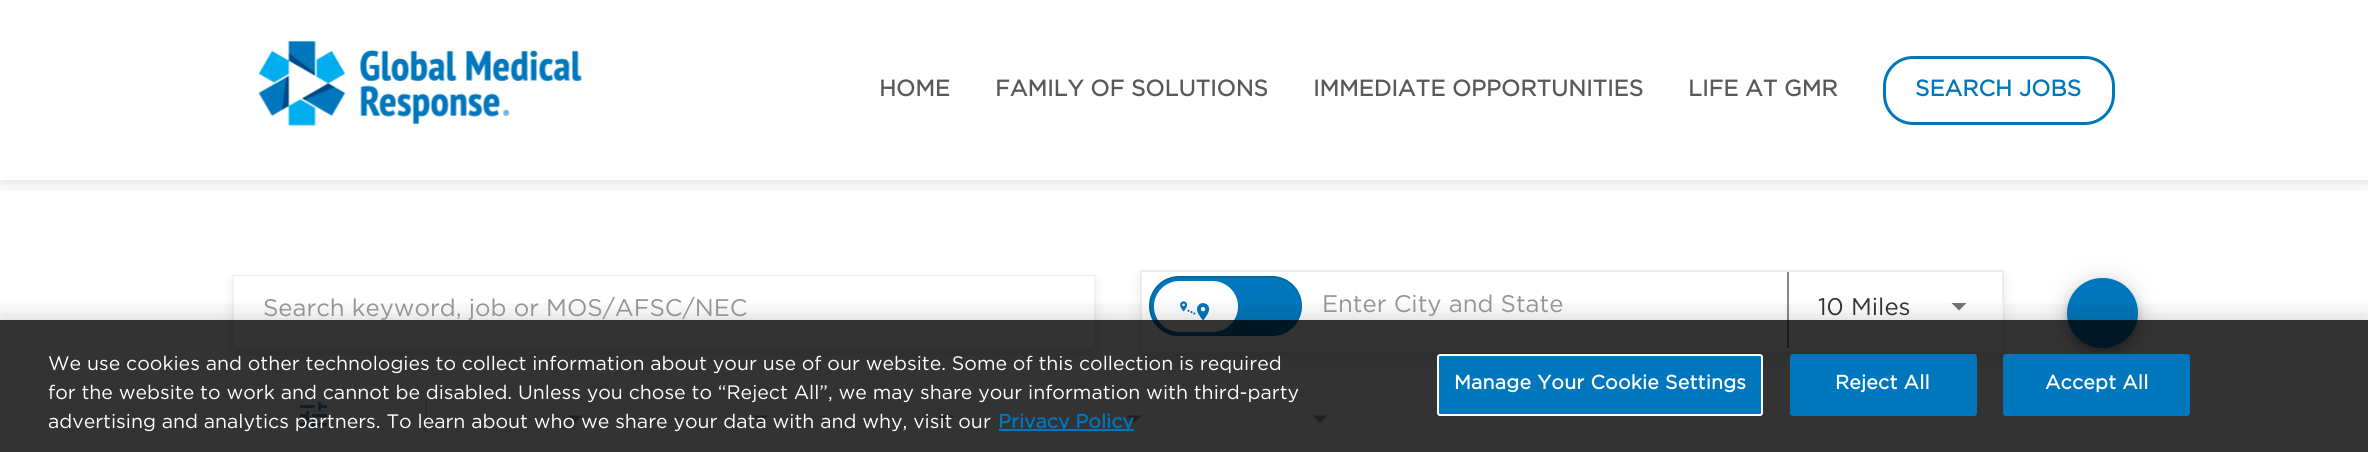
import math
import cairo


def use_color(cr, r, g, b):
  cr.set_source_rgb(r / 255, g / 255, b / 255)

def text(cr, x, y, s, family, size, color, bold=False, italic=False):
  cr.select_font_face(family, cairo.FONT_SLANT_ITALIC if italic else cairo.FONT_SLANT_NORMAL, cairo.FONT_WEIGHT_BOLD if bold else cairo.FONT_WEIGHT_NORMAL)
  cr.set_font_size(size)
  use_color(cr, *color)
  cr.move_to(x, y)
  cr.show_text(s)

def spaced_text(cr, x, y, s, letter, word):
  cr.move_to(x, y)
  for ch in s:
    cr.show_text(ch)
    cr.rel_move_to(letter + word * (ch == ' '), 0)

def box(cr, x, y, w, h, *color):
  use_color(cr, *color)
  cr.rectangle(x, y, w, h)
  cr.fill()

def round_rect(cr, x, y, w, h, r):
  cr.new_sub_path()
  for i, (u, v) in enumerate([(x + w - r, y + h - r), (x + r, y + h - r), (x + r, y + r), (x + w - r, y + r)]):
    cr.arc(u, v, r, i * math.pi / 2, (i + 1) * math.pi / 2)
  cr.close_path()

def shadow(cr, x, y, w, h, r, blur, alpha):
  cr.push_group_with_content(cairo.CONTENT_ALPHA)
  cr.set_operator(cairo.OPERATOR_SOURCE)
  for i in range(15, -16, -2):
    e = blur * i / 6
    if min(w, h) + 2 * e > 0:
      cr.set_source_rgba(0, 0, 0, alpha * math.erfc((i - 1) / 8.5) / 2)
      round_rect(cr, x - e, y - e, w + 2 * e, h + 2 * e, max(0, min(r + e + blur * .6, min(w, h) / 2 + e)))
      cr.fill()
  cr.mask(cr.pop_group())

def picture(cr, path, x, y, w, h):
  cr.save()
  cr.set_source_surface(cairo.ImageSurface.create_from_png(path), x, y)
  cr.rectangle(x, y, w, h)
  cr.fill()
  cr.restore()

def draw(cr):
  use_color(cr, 255, 255, 255)
  cr.paint()
  cr.save()
  cr.rectangle(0, 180, 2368, 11)
  cr.clip()
  use_color(cr, 0, 0, 0)
  shadow(cr, 0, 5, 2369, 180, 0, 7.5, 0.1)
  cr.restore()
  picture(cr, "img_01.png", 258, 40, 324, 86)
  round_rect(cr, 1884.5, 57.5, 229, 66, 28.5)
  use_color(cr, 0, 118, 188)
  cr.set_line_width(3)
  cr.stroke()
  cr.save()
  cr.set_fill_rule(cairo.FILL_RULE_EVEN_ODD)
  cr.new_path()
  cr.move_to(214, 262)
  cr.line_to(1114, 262)
  cr.line_to(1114, 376)
  cr.line_to(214, 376)
  cr.close_path()
  cr.move_to(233, 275)
  cr.line_to(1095, 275)
  cr.line_to(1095, 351)
  cr.line_to(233, 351)
  cr.close_path()
  cr.clip()
  use_color(cr, 0, 0, 0)
  shadow(cr, 233, 281, 862, 76, 0, 6, 0.1)
  cr.restore()
  cr.rectangle(234, 276, 860, 74)
  use_color(cr, 236, 236, 236)
  cr.set_line_width(2)
  cr.stroke()
  box(cr, 234, 276, 860, 69, 255, 255, 255)
  cr.save()
  cr.set_fill_rule(cairo.FILL_RULE_EVEN_ODD)
  cr.new_path()
  cr.move_to(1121, 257)
  cr.line_to(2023, 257)
  cr.line_to(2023, 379)
  cr.line_to(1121, 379)
  cr.close_path()
  cr.move_to(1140, 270)
  cr.line_to(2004, 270)
  cr.line_to(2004, 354)
  cr.line_to(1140, 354)
  cr.close_path()
  cr.clip()
  use_color(cr, 0, 0, 0)
  shadow(cr, 1140, 276, 864, 84, 0, 6, 0.1)
  cr.restore()
  cr.rectangle(1141, 271, 862, 82)
  use_color(cr, 236, 236, 236)
  cr.stroke()
  use_color(cr, 0, 118, 188)
  round_rect(cr, 1149, 276, 153, 60, 30)
  cr.fill()
  round_rect(cr, 1150, 277, 151, 58, 29)
  cr.set_source_rgba(0, 0, 0, 0.12)
  cr.stroke()
  use_color(cr, 0, 118, 188)
  cr.new_path()
  cr.move_to(1179.5, 278)
  cr.line_to(1241, 278)
  cr.line_to(1241, 335)
  cr.line_to(1179.5, 335)
  cr.curve_to(1164, 335, 1151, 322, 1151, 306.5)
  cr.curve_to(1151, 291, 1164, 278, 1179.5, 278)
  cr.close_path()
  cr.fill()
  use_color(cr, 255, 255, 255)
  round_rect(cr, 1154, 281, 84, 51, 25.5)
  cr.fill()
  picture(cr, "img_02.png", 1180, 301, 30, 20)
  use_color(cr, 0, 118, 188)
  cr.new_path()
  cr.move_to(1241, 278)
  cr.line_to(1272.5, 278)
  cr.curve_to(1288, 278, 1301, 291, 1301, 306.5)
  cr.curve_to(1301, 322, 1288, 335, 1272.5, 335)
  cr.line_to(1241, 335)
  cr.close_path()
  cr.fill()
  use_color(cr, 255, 255, 255)
  cr.new_path()
  cr.move_to(1787, 272)
  cr.line_to(1967, 272)
  cr.curve_to(1987, 272, 2003, 288, 2003, 308)
  cr.line_to(2003, 312)
  cr.curve_to(2003, 332, 1987, 348, 1967, 348)
  cr.line_to(1787, 348)
  cr.close_path()
  cr.fill()
  box(cr, 1787, 272, 2, 76, 136, 136, 136)
  use_color(cr, 117, 117, 117)
  cr.new_path()
  cr.move_to(1951.5, 303)
  cr.line_to(1966.5, 303)
  cr.line_to(1959, 310.5)
  cr.close_path()
  cr.fill()
  use_color(cr, 0, 0, 0)
  shadow(cr, 2067, 279, 71, 71, 35.5, 13.5, 0.12)
  shadow(cr, 2067, 287, 71, 70, 35, 7.5, 0.14)
  shadow(cr, 2069, 284, 67, 67, 33.5, 4, 0.2)
  use_color(cr, 0, 118, 188)
  round_rect(cr, 2067, 278, 71, 70, 35)
  cr.fill()
  picture(cr, "img_03.png", 300, 402, 27, 27)
  box(cr, 425, 399, 2, 35, 221, 221, 221)
  use_color(cr, 158, 158, 158)
  cr.new_path()
  cr.move_to(567, 415.5)
  cr.line_to(582, 415.5)
  cr.line_to(574.5, 423)
  cr.close_path()
  cr.fill()
  cr.new_path()
  cr.move_to(753, 415.5)
  cr.line_to(768, 415.5)
  cr.line_to(760.5, 423)
  cr.close_path()
  cr.fill()
  cr.new_path()
  cr.move_to(939, 415.5)
  cr.line_to(954, 415.5)
  cr.line_to(946.5, 423)
  cr.close_path()
  cr.fill()
  cr.new_path()
  cr.move_to(1126.5, 415.5)
  cr.line_to(1141.5, 415.5)
  cr.line_to(1134, 423)
  cr.close_path()
  cr.fill()
  cr.new_path()
  cr.move_to(1312.5, 415.5)
  cr.line_to(1327.5, 415.5)
  cr.line_to(1320, 423)
  cr.close_path()
  cr.fill()
  cr.save()
  cr.rectangle(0, 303, 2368, 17)
  cr.clip()
  use_color(cr, 0, 0, 0)
  shadow(cr, 0, 320, 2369, 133, 0, 13.5, 0.2)
  cr.restore()
  cr.set_source_rgba(0, 0, 0, 0.8)
  cr.rectangle(0, 320, 2368, 132)
  cr.fill()
  box(cr, 999, 429, 135, 2, 0, 118, 188)
  round_rect(cr, 1438, 355, 324, 60, 2)
  cr.fill_preserve()
  use_color(cr, 255, 255, 255)
  cr.stroke()
  use_color(cr, 0, 118, 188)
  round_rect(cr, 1791, 355, 185, 60, 2)
  cr.fill_preserve()
  cr.stroke()
  round_rect(cr, 2004, 355, 185, 60, 2)
  cr.fill_preserve()
  cr.stroke()
  text(cr, 879, 96, "HOME", "Gotham", 22.5, (88, 89, 91), bold=True)
  text(cr, 995, 96, "FAMILY OF SOLUTIONS", "Gotham", 22.5, (88, 89, 91), bold=True)
  text(cr, 1313, 96, "IMMEDIATE OPPORTUNITIES", "Gotham", 22.5, (88, 89, 91), bold=True)
  text(cr, 1688, 96, "LIFE AT GMR", "Gotham", 22.5, (88, 89, 91), bold=True)
  text(cr, 1915, 96, "SEARCH JOBS", "Gotham", 22.5, (0, 118, 188), bold=True)
  text(cr, 263, 316, "Search keyword, job or MOS/AFSC/NEC", "Gotham", 24, (148, 148, 148))
  text(cr, 1322, 312, "Enter City and State", "Gotham", 24, (148, 148, 148))
  text(cr, 1818, 315, "10 Miles", "Gotham", 24, (51, 51, 51))
  text(cr, 48, 370, "We use cookies and other technologies to collect information about your use of our website. Some of this collection is required", "Gotham", 19.5, (255, 255, 255))
  text(cr, 48, 399, "for the website to work and cannot be disabled.", "Gotham", 19.5, (255, 255, 255))
  text(cr, 518, 399, "Unless you chose to “Reject All”, we may share your information with third-party", "Gotham", 19.5, (255, 255, 255))
  text(cr, 48, 428, "advertising and analytics partners. To learn about who we share your data with and why, visit our", "Gotham", 19.5, (255, 255, 255))
  text(cr, 998, 428, "Privacy Policy", "Gotham", 19.5, (0, 118, 188), bold=True)
  use_color(cr, 255, 255, 255)
  spaced_text(cr, 1454, 389, "Manage Your Cookie Settings", 0.2, 0)
  spaced_text(cr, 1835, 389, "Reject All", 0.2, 0)
  spaced_text(cr, 2045, 389, "Accept All", 0.2, 0)


surface = cairo.ImageSurface(cairo.FORMAT_RGB24, 2368, 452)
cr = cairo.Context(surface)
options = cairo.FontOptions()
options.set_hint_metrics(cairo.HINT_METRICS_OFF)
options.set_hint_style(cairo.HINT_STYLE_NONE)
cr.set_font_options(options)
cr.set_miter_limit(4)
draw(cr)
surface.write_to_png("out.png")
